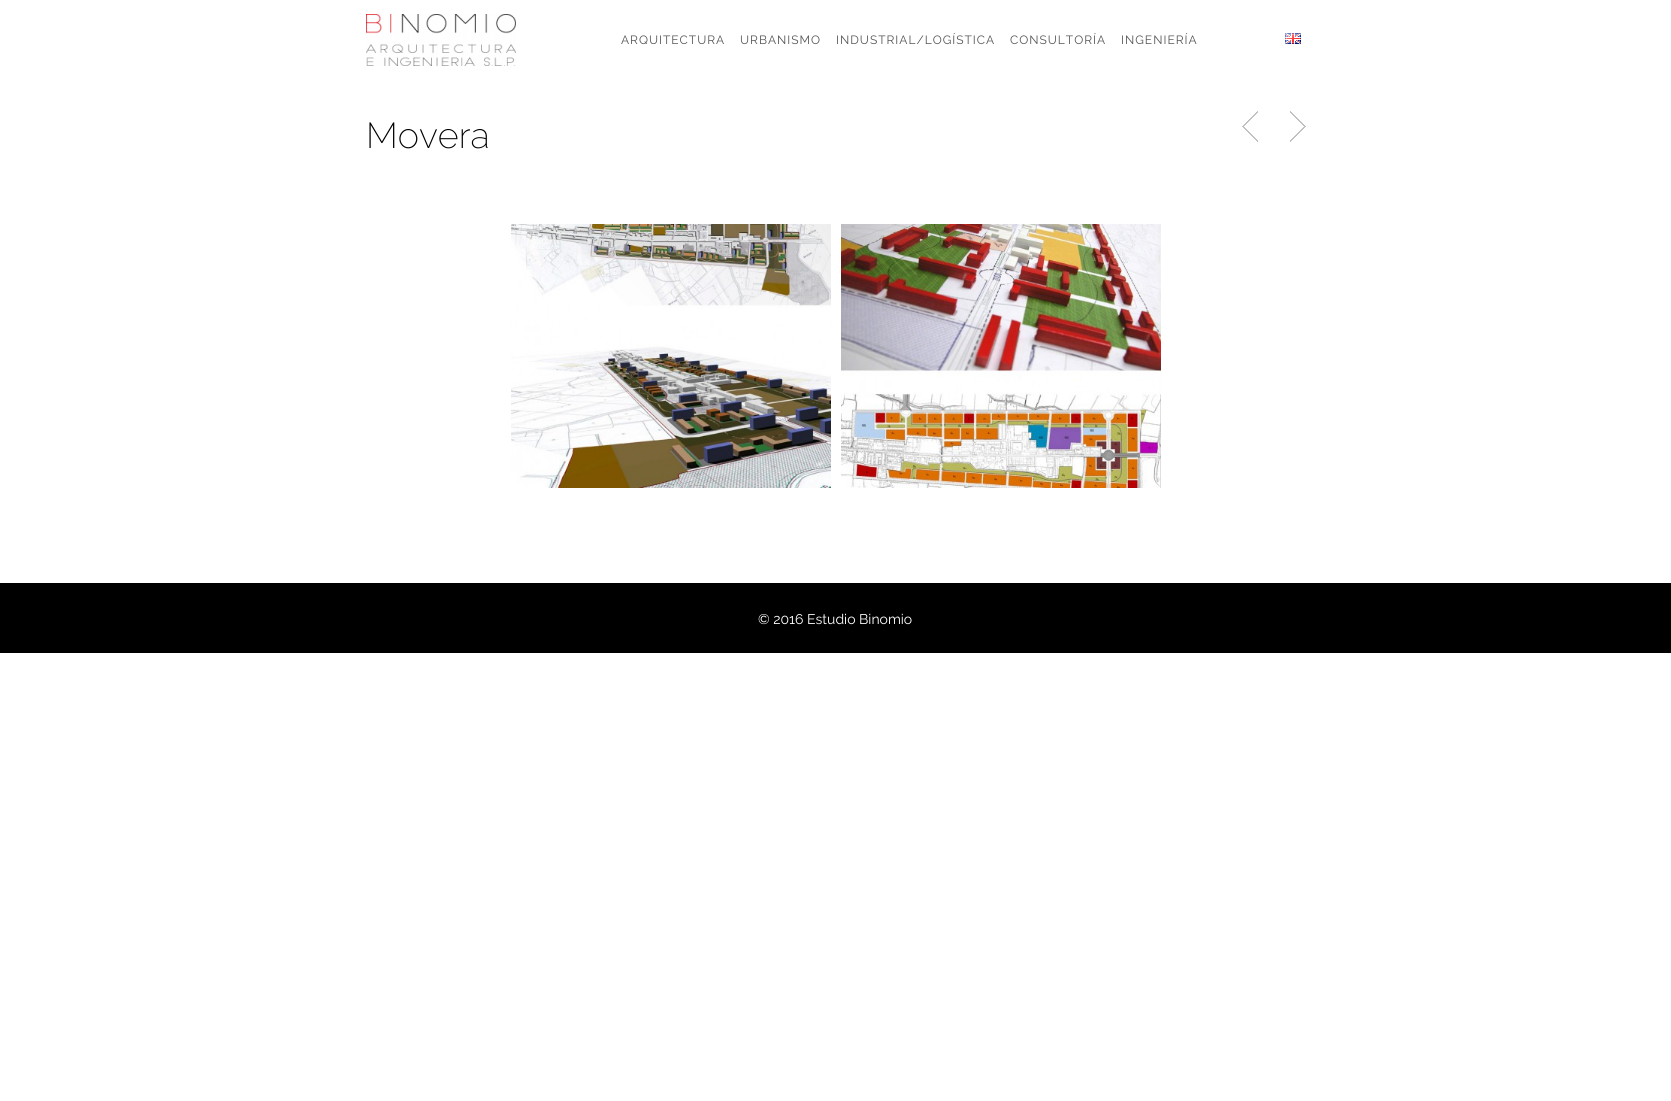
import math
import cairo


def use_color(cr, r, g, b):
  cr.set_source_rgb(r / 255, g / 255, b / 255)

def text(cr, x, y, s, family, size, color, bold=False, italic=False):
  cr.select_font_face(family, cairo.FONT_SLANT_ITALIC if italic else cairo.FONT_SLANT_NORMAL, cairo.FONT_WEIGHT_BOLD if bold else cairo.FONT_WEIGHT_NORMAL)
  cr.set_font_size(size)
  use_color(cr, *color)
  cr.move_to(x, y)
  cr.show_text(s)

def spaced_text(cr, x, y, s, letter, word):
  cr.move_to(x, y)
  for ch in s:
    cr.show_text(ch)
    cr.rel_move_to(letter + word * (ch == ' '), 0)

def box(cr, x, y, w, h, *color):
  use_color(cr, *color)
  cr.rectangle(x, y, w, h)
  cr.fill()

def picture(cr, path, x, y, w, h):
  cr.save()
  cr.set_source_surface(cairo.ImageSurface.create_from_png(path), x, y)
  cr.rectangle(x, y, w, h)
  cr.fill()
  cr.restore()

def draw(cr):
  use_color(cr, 255, 255, 255)
  cr.paint()
  picture(cr, "img_01.png", 366, 14, 150, 52)
  picture(cr, "img_02.png", 1285, 33, 16, 11)
  picture(cr, "img_03.png", 1242, 111, 16, 31)
  picture(cr, "img_04.png", 1290, 111, 16, 31)
  picture(cr, "img_05.png", 511, 224, 320, 264)
  picture(cr, "img_06.png", 841, 224, 320, 264)
  box(cr, 0, 583, 1671, 70, 0, 0, 0)
  cr.select_font_face("Raleway")
  cr.set_font_size(12)
  use_color(cr, 85, 85, 85)
  spaced_text(cr, 621, 44, "ARQUITECTURA", 1, 0)
  spaced_text(cr, 740, 44, "URBANISMO", 1, 0)
  spaced_text(cr, 836, 44, "INDUSTRIAL/LOGÍSTICA", 1, 0)
  spaced_text(cr, 1010, 44, "CONSULTORÍA", 1, 0)
  spaced_text(cr, 1121, 44, "INGENIERÍA", 1, 0)
  text(cr, 366, 148, "Movera", "Raleway ExtraLight", 36, (0, 0, 0))
  text(cr, 758, 624, "© 2016 Estudio Binomio", "Raleway", 14, (255, 255, 255))


surface = cairo.ImageSurface(cairo.FORMAT_RGB24, 1671, 1101)
cr = cairo.Context(surface)
options = cairo.FontOptions()
options.set_hint_metrics(cairo.HINT_METRICS_OFF)
options.set_hint_style(cairo.HINT_STYLE_NONE)
cr.set_font_options(options)
cr.set_miter_limit(4)
draw(cr)
surface.write_to_png("out.png")
